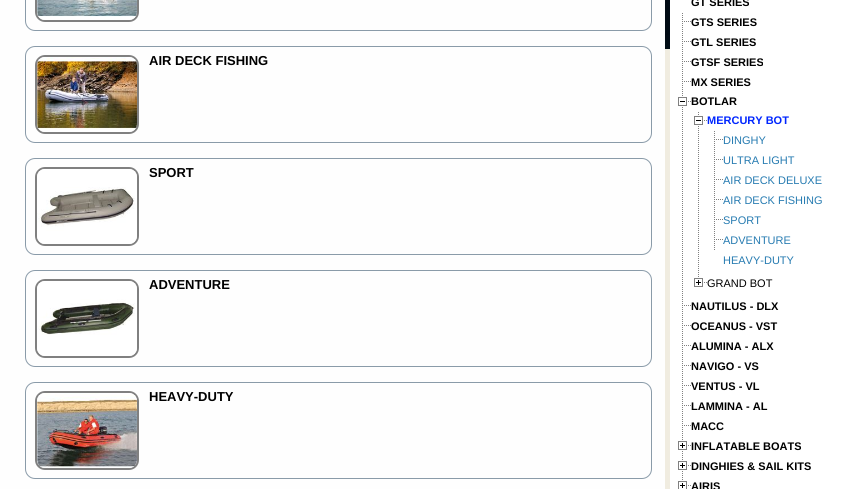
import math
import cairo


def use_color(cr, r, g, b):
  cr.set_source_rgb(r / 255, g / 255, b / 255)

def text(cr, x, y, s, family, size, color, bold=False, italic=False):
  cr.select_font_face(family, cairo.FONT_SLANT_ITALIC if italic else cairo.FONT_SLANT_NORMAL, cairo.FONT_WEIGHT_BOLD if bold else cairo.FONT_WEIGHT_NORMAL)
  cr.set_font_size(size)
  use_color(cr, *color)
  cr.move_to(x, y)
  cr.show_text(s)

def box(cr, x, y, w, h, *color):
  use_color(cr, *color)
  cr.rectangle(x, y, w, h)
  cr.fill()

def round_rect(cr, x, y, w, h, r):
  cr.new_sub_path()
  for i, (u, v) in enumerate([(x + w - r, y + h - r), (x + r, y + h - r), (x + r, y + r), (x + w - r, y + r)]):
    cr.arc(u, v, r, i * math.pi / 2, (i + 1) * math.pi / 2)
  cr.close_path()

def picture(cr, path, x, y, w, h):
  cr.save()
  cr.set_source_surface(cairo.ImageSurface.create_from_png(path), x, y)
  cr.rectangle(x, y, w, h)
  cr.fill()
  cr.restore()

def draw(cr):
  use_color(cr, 240, 236, 224)
  cr.paint()
  box(cr, 0, 0, 665, 489, 254, 254, 254)
  round_rect(cr, 25.5, -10.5, 626, 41, 9.5)
  use_color(cr, 138, 155, 169)
  cr.set_line_width(1)
  cr.stroke()
  round_rect(cr, 36, -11, 102, 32, 9)
  use_color(cr, 128, 128, 128)
  cr.set_line_width(2)
  cr.stroke()
  picture(cr, "img_01.png", 37, 0, 100, 20)
  round_rect(cr, 25.5, 46.5, 626, 96, 9.5)
  use_color(cr, 138, 155, 169)
  cr.set_line_width(1)
  cr.stroke()
  round_rect(cr, 36, 56, 102, 77, 9)
  use_color(cr, 128, 128, 128)
  cr.set_line_width(2)
  cr.stroke()
  picture(cr, "img_02.png", 37, 57, 100, 75)
  round_rect(cr, 25.5, 158.5, 626, 96, 9.5)
  use_color(cr, 138, 155, 169)
  cr.set_line_width(1)
  cr.stroke()
  round_rect(cr, 36, 168, 102, 77, 9)
  use_color(cr, 128, 128, 128)
  cr.set_line_width(2)
  cr.stroke()
  picture(cr, "img_03.png", 37, 169, 100, 75)
  round_rect(cr, 25.5, 270.5, 626, 96, 9.5)
  use_color(cr, 138, 155, 169)
  cr.set_line_width(1)
  cr.stroke()
  round_rect(cr, 36, 280, 102, 77, 9)
  use_color(cr, 128, 128, 128)
  cr.set_line_width(2)
  cr.stroke()
  picture(cr, "img_04.png", 37, 281, 100, 75)
  round_rect(cr, 25.5, 382.5, 626, 96, 9.5)
  use_color(cr, 138, 155, 169)
  cr.set_line_width(1)
  cr.stroke()
  round_rect(cr, 36, 392, 102, 77, 9)
  use_color(cr, 128, 128, 128)
  cr.set_line_width(2)
  cr.stroke()
  picture(cr, "img_05.png", 37, 393, 100, 75)
  box(cr, 670, 0, 181, 489, 255, 255, 255)
  picture(cr, "img_06.png", 682, 13, 9, 19)
  picture(cr, "img_06.png", 682, 33, 9, 19)
  picture(cr, "img_06.png", 682, 53, 9, 19)
  picture(cr, "img_06.png", 682, 73, 9, 19)
  picture(cr, "img_07.png", 682, 93, 1, 203)
  picture(cr, "img_08.png", 678, 97, 13, 9)
  picture(cr, "img_09.png", 698, 112, 1, 161)
  picture(cr, "img_08.png", 694, 116, 13, 9)
  picture(cr, "img_06.png", 714, 131, 9, 19)
  picture(cr, "img_06.png", 714, 151, 9, 19)
  picture(cr, "img_06.png", 714, 171, 9, 19)
  picture(cr, "img_06.png", 714, 191, 9, 19)
  picture(cr, "img_06.png", 714, 211, 9, 19)
  picture(cr, "img_06.png", 714, 231, 9, 19)
  picture(cr, "img_10.png", 694, 274, 13, 13)
  picture(cr, "img_06.png", 682, 297, 9, 19)
  picture(cr, "img_06.png", 682, 317, 9, 19)
  picture(cr, "img_06.png", 682, 337, 9, 19)
  picture(cr, "img_06.png", 682, 357, 9, 19)
  picture(cr, "img_06.png", 682, 377, 9, 19)
  picture(cr, "img_06.png", 682, 397, 9, 19)
  picture(cr, "img_06.png", 682, 417, 9, 19)
  picture(cr, "img_11.png", 682, 437, 1, 19)
  picture(cr, "img_12.png", 678, 441, 13, 9)
  picture(cr, "img_11.png", 682, 457, 1, 19)
  picture(cr, "img_12.png", 678, 461, 13, 9)
  picture(cr, "img_13.png", 682, 477, 1, 3)
  picture(cr, "img_14.png", 678, 481, 13, 8)
  picture(cr, "img_15.png", 665, 0, 5, 49)
  text(cr, 149, 65, "AIR DECK FISHING", "Liberation Sans", 13, (0, 0, 0), bold=True)
  text(cr, 149, 177, "SPORT", "Liberation Sans", 13, (0, 0, 0), bold=True)
  text(cr, 149, 289, "ADVENTURE", "Liberation Sans", 13, (0, 0, 0), bold=True)
  text(cr, 149, 401, "HEAVY-DUTY", "Liberation Sans", 13, (0, 0, 0), bold=True)
  text(cr, 691, 6, "GT SERIES", "Liberation Sans", 11, (0, 0, 0), bold=True)
  text(cr, 691, 26, "GTS SERIES", "Liberation Sans", 11, (0, 0, 0), bold=True)
  text(cr, 691, 46, "GTL SERIES", "Liberation Sans", 11, (0, 0, 0), bold=True)
  text(cr, 691, 66, "GTSF SERIES", "Liberation Sans", 11, (0, 0, 0), bold=True)
  text(cr, 691, 86, "MX SERIES", "Liberation Sans", 11, (0, 0, 0), bold=True)
  text(cr, 691, 105, "BOTLAR", "Liberation Sans", 11, (0, 0, 0), bold=True)
  text(cr, 707, 124, "MERCURY BOT", "Liberation Sans", 11, (0, 38, 255), bold=True)
  text(cr, 723, 144, "DINGHY", "Liberation Sans", 11, (38, 123, 177))
  text(cr, 723, 164, "ULTRA LIGHT", "Liberation Sans", 11, (38, 123, 177))
  text(cr, 723, 184, "AIR DECK DELUXE", "Liberation Sans", 11, (38, 123, 177))
  text(cr, 723, 204, "AIR DECK FISHING", "Liberation Sans", 11, (38, 123, 177))
  text(cr, 723, 224, "SPORT", "Liberation Sans", 11, (38, 123, 177))
  text(cr, 723, 244, "ADVENTURE", "Liberation Sans", 11, (38, 123, 177))
  text(cr, 723, 264, "HEAVY-DUTY", "Liberation Sans", 11, (38, 123, 177))
  text(cr, 707, 287, "GRAND BOT", "Liberation Sans", 11, (0, 0, 0))
  text(cr, 691, 310, "NAUTILUS - DLX", "Liberation Sans", 11, (0, 0, 0), bold=True)
  text(cr, 691, 330, "OCEANUS - VST", "Liberation Sans", 11, (0, 0, 0), bold=True)
  text(cr, 691, 350, "ALUMINA - ALX", "Liberation Sans", 11, (0, 0, 0), bold=True)
  text(cr, 691, 370, "NAVIGO - VS", "Liberation Sans", 11, (0, 0, 0), bold=True)
  text(cr, 691, 390, "VENTUS - VL", "Liberation Sans", 11, (0, 0, 0), bold=True)
  text(cr, 691, 410, "LAMMINA - AL", "Liberation Sans", 11, (0, 0, 0), bold=True)
  text(cr, 691, 430, "MACC", "Liberation Sans", 11, (0, 0, 0), bold=True)
  text(cr, 691, 450, "INFLATABLE BOATS", "Liberation Sans", 11, (0, 0, 0), bold=True)
  text(cr, 691, 470, "DINGHIES & SAIL KITS", "Liberation Sans", 11, (0, 0, 0), bold=True)
  text(cr, 691, 490, "AIRIS", "Liberation Sans", 11, (0, 0, 0), bold=True)


surface = cairo.ImageSurface(cairo.FORMAT_RGB24, 851, 489)
cr = cairo.Context(surface)
options = cairo.FontOptions()
options.set_hint_metrics(cairo.HINT_METRICS_OFF)
options.set_hint_style(cairo.HINT_STYLE_NONE)
cr.set_font_options(options)
cr.set_miter_limit(4)
draw(cr)
surface.write_to_png("out.png")
